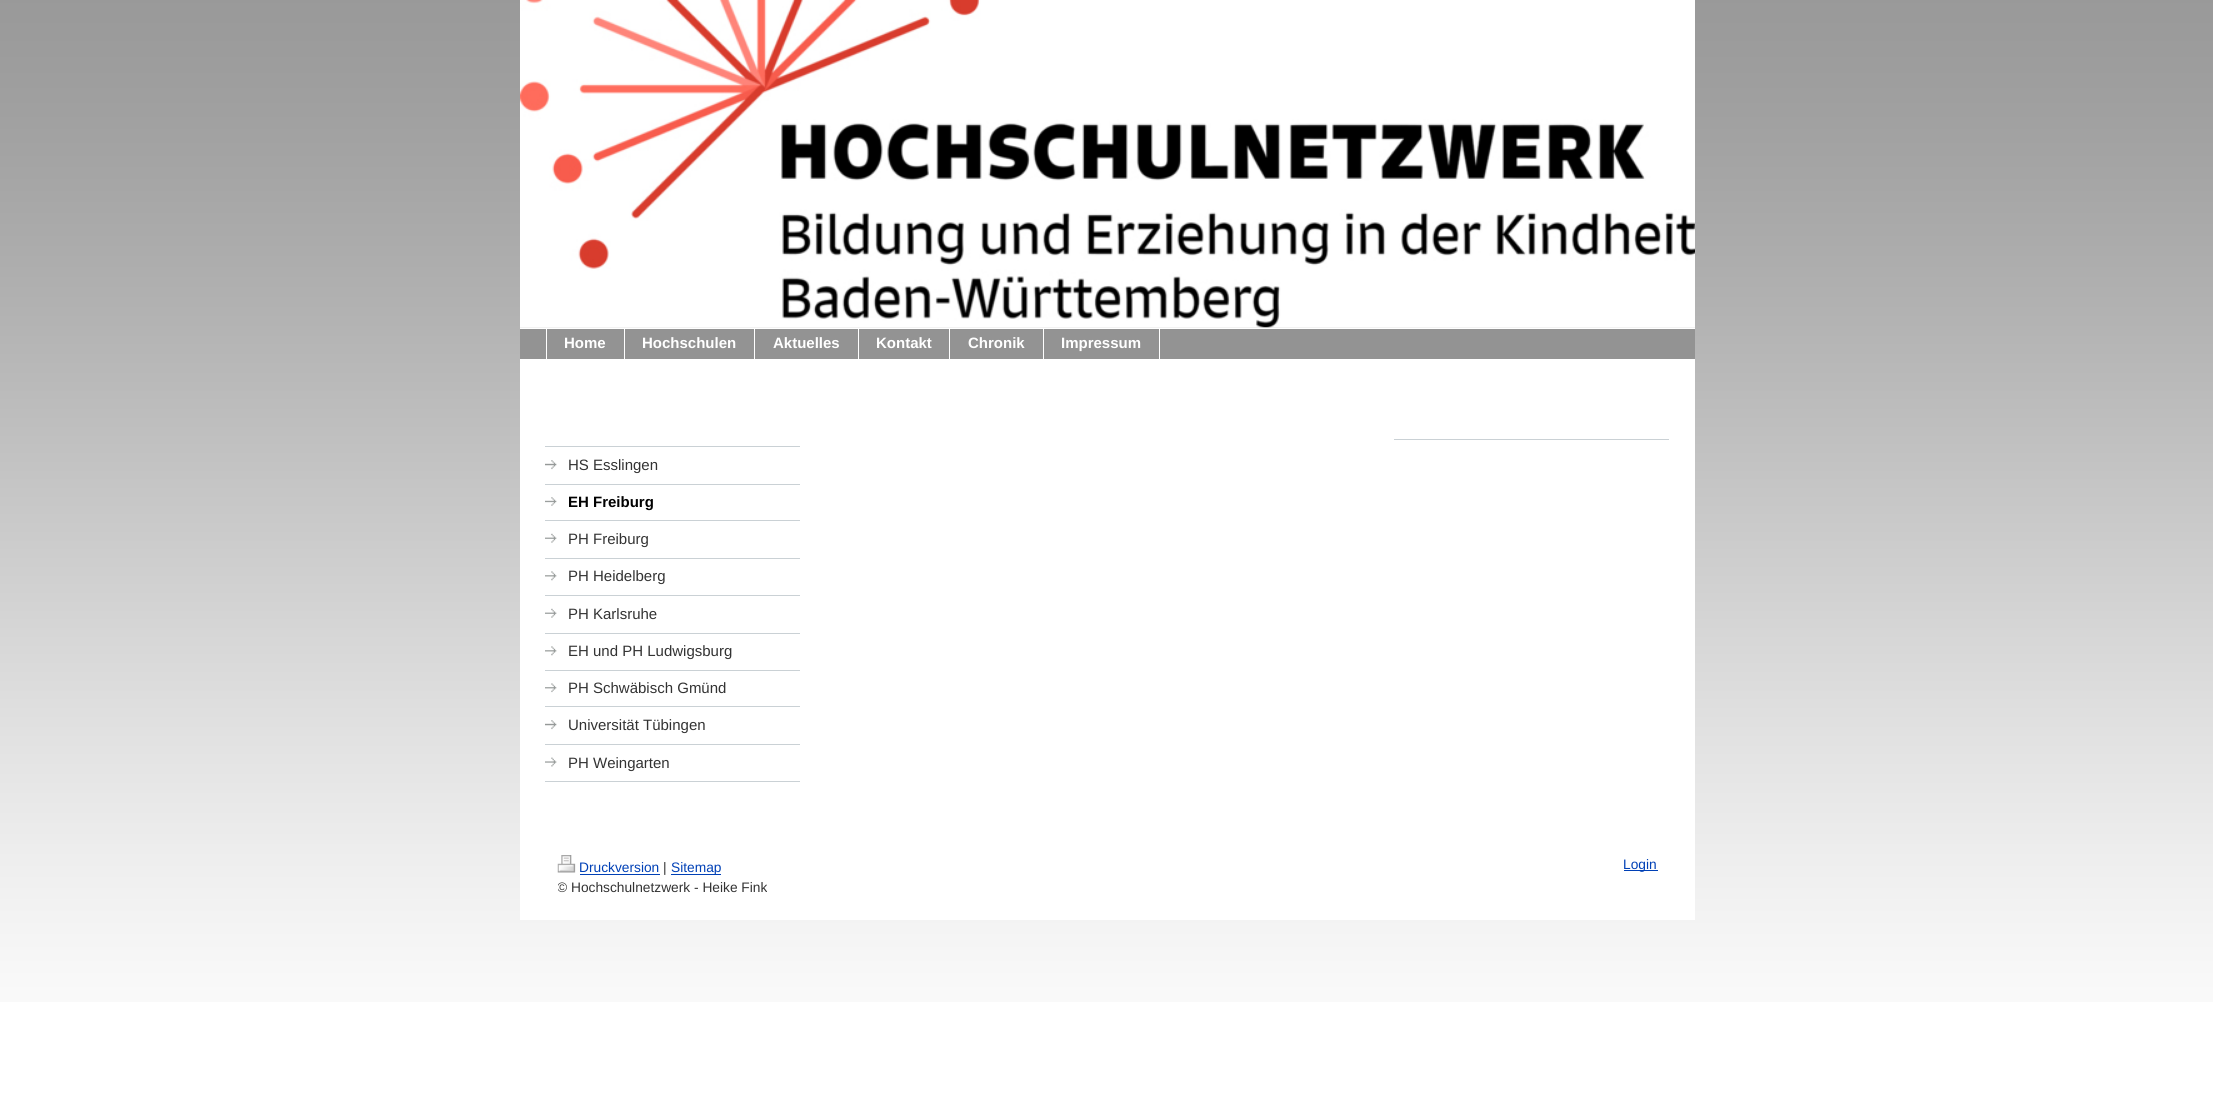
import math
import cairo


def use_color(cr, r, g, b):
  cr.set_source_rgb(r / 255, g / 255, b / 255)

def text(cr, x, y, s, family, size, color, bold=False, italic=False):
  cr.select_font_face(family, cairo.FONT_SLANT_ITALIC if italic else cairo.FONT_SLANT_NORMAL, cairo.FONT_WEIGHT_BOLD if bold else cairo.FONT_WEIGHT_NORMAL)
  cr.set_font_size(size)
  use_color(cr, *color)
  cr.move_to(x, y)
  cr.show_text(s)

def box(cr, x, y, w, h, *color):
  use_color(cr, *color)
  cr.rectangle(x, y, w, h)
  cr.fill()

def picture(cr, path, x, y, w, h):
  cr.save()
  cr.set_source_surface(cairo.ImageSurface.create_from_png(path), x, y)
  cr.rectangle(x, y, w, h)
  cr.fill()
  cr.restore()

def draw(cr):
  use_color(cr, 255, 255, 255)
  cr.paint()
  picture(cr, "img_01.png", 0, 0, 2213, 1002)
  box(cr, 520, 328, 1175, 592, 255, 255, 255)
  box(cr, 520, 327, 1175, 1, 238, 238, 238)
  picture(cr, "img_02.png", 520, 0, 1175, 328)
  box(cr, 520, 329, 1175, 30, 147, 147, 147)
  box(cr, 546, 328, 1, 31, 255, 255, 255)
  box(cr, 624, 328, 1, 32, 255, 255, 255)
  box(cr, 754, 328, 1, 32, 255, 255, 255)
  box(cr, 858, 328, 1, 32, 255, 255, 255)
  box(cr, 949, 328, 1, 32, 255, 255, 255)
  box(cr, 1043, 328, 1, 32, 255, 255, 255)
  box(cr, 1159, 328, 1, 32, 255, 255, 255)
  box(cr, 1394, 439, 275, 1, 202, 209, 213)
  box(cr, 545, 446, 255, 1, 202, 209, 213)
  picture(cr, "img_03.png", 545, 460, 12, 10)
  box(cr, 545, 484, 255, 1, 202, 209, 213)
  picture(cr, "img_04.png", 545, 497, 12, 9)
  box(cr, 545, 520, 255, 1, 202, 209, 213)
  picture(cr, "img_05.png", 545, 533, 12, 10)
  picture(cr, "img_06.png", 545, 559, 255, 22)
  box(cr, 545, 558, 255, 1, 202, 209, 213)
  box(cr, 545, 595, 255, 1, 202, 209, 213)
  picture(cr, "img_05.png", 545, 608, 12, 10)
  picture(cr, "img_06.png", 545, 634, 255, 22)
  box(cr, 545, 633, 255, 1, 202, 209, 213)
  box(cr, 545, 670, 255, 1, 202, 209, 213)
  picture(cr, "img_07.png", 545, 683, 12, 10)
  box(cr, 545, 706, 255, 1, 202, 209, 213)
  picture(cr, "img_03.png", 545, 720, 12, 10)
  box(cr, 545, 744, 255, 1, 202, 209, 213)
  picture(cr, "img_08.png", 545, 757, 12, 10)
  box(cr, 545, 781, 255, 1, 202, 209, 213)
  picture(cr, "img_09.png", 557, 855, 19, 18)
  box(cr, 580, 874, 80, 1, 0, 64, 182)
  box(cr, 671, 874, 50, 1, 0, 64, 182)
  box(cr, 1624, 870, 34, 1, 0, 64, 182)
  text(cr, 564, 348, "Home", "Liberation Sans", 15, (255, 255, 255), bold=True)
  text(cr, 642, 348, "Hochschulen", "Liberation Sans", 15, (255, 255, 255), bold=True)
  text(cr, 773, 348, "Aktuelles", "Liberation Sans", 15, (255, 255, 255), bold=True)
  text(cr, 876, 348, "Kontakt", "Liberation Sans", 15, (255, 255, 255), bold=True)
  text(cr, 968, 348, "Chronik", "Liberation Sans", 15, (255, 255, 255), bold=True)
  text(cr, 1061, 348, "Impressum", "Liberation Sans", 15, (255, 255, 255), bold=True)
  text(cr, 568, 470, "HS Esslingen", "Liberation Sans", 15, (51, 51, 51))
  text(cr, 568, 507, "EH Freiburg", "Liberation Sans", 15, (1, 1, 1), bold=True)
  text(cr, 568, 544, "PH Freiburg", "Liberation Sans", 15, (51, 51, 51))
  text(cr, 568, 581, "PH Heidelberg", "Liberation Sans", 15, (51, 51, 51))
  text(cr, 568, 619, "PH Karlsruhe", "Liberation Sans", 15, (51, 51, 51))
  text(cr, 568, 656, "EH und PH Ludwigsburg", "Liberation Sans", 15, (51, 51, 51))
  text(cr, 568, 693, "PH Schwäbisch Gmünd", "Liberation Sans", 15, (51, 51, 51))
  text(cr, 568, 730, "Universität Tübingen", "Liberation Sans", 15, (51, 51, 51))
  text(cr, 568, 768, "PH Weingarten", "Liberation Sans", 15, (51, 51, 51))
  text(cr, 579, 872, "Druckversion", "Liberation Sans", 13.75, (0, 64, 182))
  text(cr, 663, 872, "|", "Liberation Sans", 13.75, (51, 51, 51))
  text(cr, 671, 872, "Sitemap", "Liberation Sans", 13.75, (0, 64, 182))
  cr.save()
  cr.rectangle(558, 855, 1100, 43)
  cr.clip()
  text(cr, 557, 892, "© Hochschulnetzwerk - Heike Fink", "Liberation Sans", 13.75, (51, 51, 51))
  cr.restore()
  text(cr, 1623, 869, "Login", "Liberation Sans", 13.75, (0, 64, 182))


surface = cairo.ImageSurface(cairo.FORMAT_RGB24, 2213, 1099)
cr = cairo.Context(surface)
options = cairo.FontOptions()
options.set_hint_metrics(cairo.HINT_METRICS_OFF)
options.set_hint_style(cairo.HINT_STYLE_NONE)
cr.set_font_options(options)
cr.set_miter_limit(4)
draw(cr)
surface.write_to_png("out.png")
